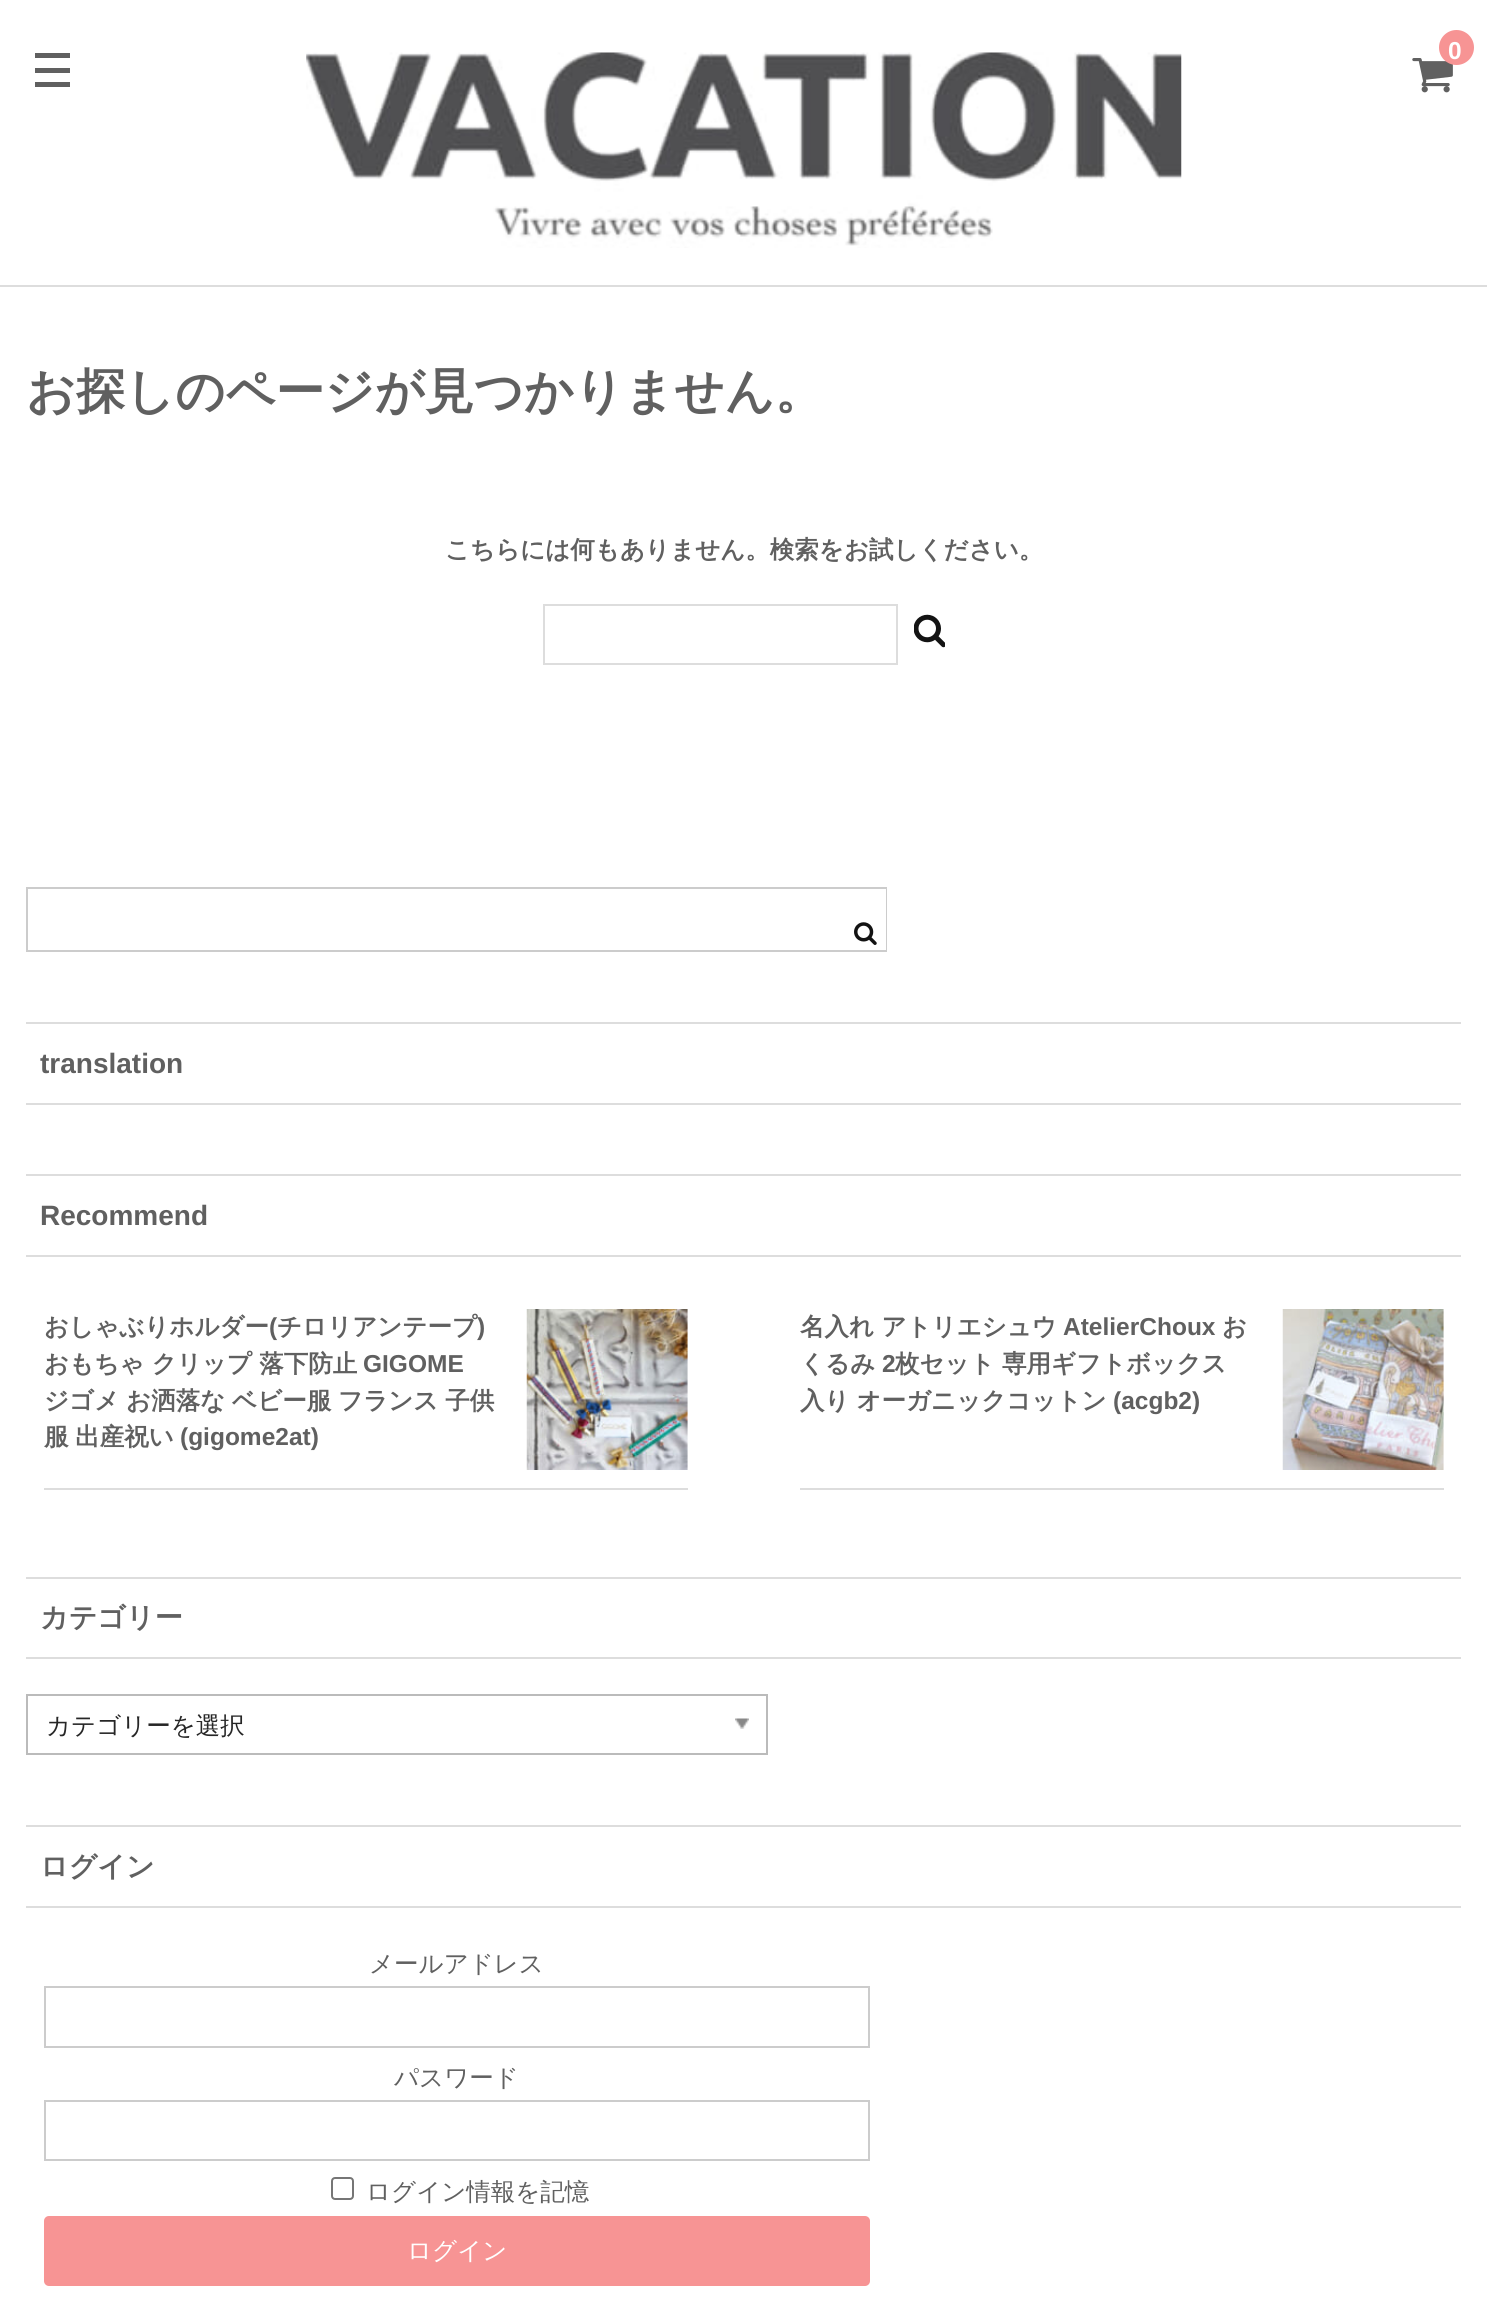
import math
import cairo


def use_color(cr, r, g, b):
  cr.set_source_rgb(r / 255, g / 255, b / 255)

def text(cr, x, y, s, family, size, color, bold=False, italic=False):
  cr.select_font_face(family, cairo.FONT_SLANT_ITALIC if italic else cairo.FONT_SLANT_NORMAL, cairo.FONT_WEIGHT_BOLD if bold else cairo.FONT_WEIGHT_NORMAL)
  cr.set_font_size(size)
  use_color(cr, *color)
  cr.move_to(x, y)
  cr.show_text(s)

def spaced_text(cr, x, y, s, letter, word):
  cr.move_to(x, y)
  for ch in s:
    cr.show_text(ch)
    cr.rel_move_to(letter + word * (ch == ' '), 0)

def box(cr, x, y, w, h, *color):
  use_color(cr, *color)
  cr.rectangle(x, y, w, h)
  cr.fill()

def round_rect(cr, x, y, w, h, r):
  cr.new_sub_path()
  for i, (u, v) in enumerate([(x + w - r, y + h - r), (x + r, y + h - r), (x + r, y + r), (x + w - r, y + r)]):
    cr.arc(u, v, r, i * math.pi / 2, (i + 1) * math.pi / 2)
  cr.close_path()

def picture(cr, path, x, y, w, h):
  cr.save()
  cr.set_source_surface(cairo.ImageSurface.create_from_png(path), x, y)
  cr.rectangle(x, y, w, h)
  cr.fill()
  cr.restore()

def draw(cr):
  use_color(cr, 255, 255, 255)
  cr.paint()
  box(cr, 0, 285, 1487, 2, 221, 221, 221)
  box(cr, 35, 53, 35, 5, 96, 96, 96)
  box(cr, 35, 68, 35, 5, 96, 96, 96)
  box(cr, 35, 82, 35, 5, 96, 96, 96)
  picture(cr, "img_01.png", 306, 52, 876, 196)
  picture(cr, "img_02.png", 1412, 58, 41, 35)
  use_color(cr, 247, 148, 148)
  cr.arc(1456.5, 47.5, 17.5, 0, 2 * math.pi)
  cr.fill()
  cr.rectangle(544, 605, 353, 59)
  use_color(cr, 221, 221, 221)
  cr.stroke()
  picture(cr, "img_03.png", 914, 614, 31, 34)
  cr.rectangle(27, 888, 859, 63)
  use_color(cr, 204, 204, 204)
  cr.stroke()
  picture(cr, "img_04.png", 854, 922, 23, 23)
  box(cr, 885, 889, 1, 61, 255, 255, 255)
  box(cr, 26, 1022, 1435, 2, 221, 221, 221)
  box(cr, 26, 1103, 1435, 2, 221, 221, 221)
  box(cr, 26, 1174, 1435, 2, 221, 221, 221)
  box(cr, 26, 1255, 1435, 2, 221, 221, 221)
  box(cr, 44, 1488, 644, 2, 221, 221, 221)
  picture(cr, "img_05.png", 526, 1309, 162, 161)
  box(cr, 800, 1488, 644, 2, 221, 221, 221)
  picture(cr, "img_06.png", 1282, 1309, 162, 161)
  box(cr, 26, 1577, 1435, 2, 221, 221, 221)
  box(cr, 26, 1657, 1435, 2, 221, 221, 221)
  picture(cr, "img_07.png", 735, 1718, 14, 11)
  cr.rectangle(27, 1695, 740, 59)
  use_color(cr, 187, 187, 187)
  cr.stroke()
  box(cr, 26, 1825, 1435, 2, 221, 221, 221)
  box(cr, 26, 1906, 1435, 2, 221, 221, 221)
  cr.rectangle(45, 1987, 824, 60)
  use_color(cr, 204, 204, 204)
  cr.stroke()
  cr.rectangle(45, 2101, 824, 59)
  cr.stroke()
  round_rect(cr, 332, 2178, 21, 21, 3)
  use_color(cr, 118, 118, 118)
  cr.stroke()
  use_color(cr, 247, 148, 148)
  round_rect(cr, 44, 2216, 826, 70, 5)
  cr.fill()
  text(cr, 1448, 59, "0", "Liberation Sans", 24.5, (255, 255, 255), bold=True)
  text(cr, 26, 408, "お探しのページが見つかりません。", "WenQuanYi Zen Hei", 49, (96, 96, 96), bold=True)
  text(cr, 445, 558, "こちらには何もありません。検索をお試しください。", "WenQuanYi Zen Hei", 24.5, (96, 96, 96), bold=True)
  text(cr, 40, 1073, "translation", "Liberation Sans", 28, (96, 96, 96), bold=True)
  text(cr, 40, 1225, "Recommend", "Liberation Sans", 28, (96, 96, 96), bold=True)
  text(cr, 44, 1335, "おしゃぶりホルダー", "WenQuanYi Zen Hei", 24.5, (96, 96, 96), bold=True)
  text(cr, 269, 1335, "(", "Liberation Sans", 24.5, (96, 96, 96), bold=True)
  text(cr, 277, 1335, "チロリアンテープ", "WenQuanYi Zen Hei", 24.5, (96, 96, 96), bold=True)
  text(cr, 477, 1335, ")", "Liberation Sans", 24.5, (96, 96, 96), bold=True)
  text(cr, 44, 1372, "おもちゃ クリップ 落下防止", "WenQuanYi Zen Hei", 24.5, (96, 96, 96), bold=True)
  text(cr, 363, 1372, "GIGOME", "Liberation Sans", 24.5, (96, 96, 96), bold=True)
  cr.select_font_face("WenQuanYi Zen Hei", cairo.FONT_SLANT_NORMAL, cairo.FONT_WEIGHT_BOLD)
  spaced_text(cr, 44, 1409, "ジゴメ お洒落な ベビー服 フランス 子供", 0, -0.5)
  spaced_text(cr, 44, 1445, "服 出産祝い", 0, -0.5)
  text(cr, 180, 1445, "(gigome2at)", "Liberation Sans", 24.5, (96, 96, 96), bold=True)
  text(cr, 800, 1335, "名入れ アトリエシュウ", "WenQuanYi Zen Hei", 24.5, (96, 96, 96), bold=True)
  text(cr, 1063, 1335, "AtelierChoux", "Liberation Sans", 24.5, (96, 96, 96), bold=True)
  text(cr, 1222, 1335, "お", "WenQuanYi Zen Hei", 24.5, (96, 96, 96), bold=True)
  text(cr, 800, 1372, "くるみ", "WenQuanYi Zen Hei", 24.5, (96, 96, 96), bold=True)
  text(cr, 882, 1372, "2", "Liberation Sans", 24.5, (96, 96, 96), bold=True)
  text(cr, 895, 1372, "枚セット 専用ギフトボックス", "WenQuanYi Zen Hei", 24.5, (96, 96, 96), bold=True)
  spaced_text(cr, 800, 1409, "入り オーガニックコットン", 0, -0.5)
  text(cr, 1113, 1409, "(acgb2)", "Liberation Sans", 24.5, (96, 96, 96), bold=True)
  text(cr, 40, 1627, "カテゴリー", "WenQuanYi Zen Hei", 28, (96, 96, 96), bold=True)
  text(cr, 46, 1734, "カテゴリーを選択", "WenQuanYi Zen Hei Medium", 24.5, (38, 38, 38))
  text(cr, 40, 1876, "ログイン", "WenQuanYi Zen Hei", 28, (96, 96, 96), bold=True)
  text(cr, 369, 1972, "メールアドレス", "WenQuanYi Zen Hei Medium", 24.5, (96, 96, 96))
  text(cr, 394, 2086, "パスワード", "WenQuanYi Zen Hei Medium", 24.5, (96, 96, 96))
  text(cr, 366, 2200, "ログイン情報を記憶", "WenQuanYi Zen Hei Medium", 24.5, (96, 96, 96))
  text(cr, 407, 2259, "ログイン", "WenQuanYi Zen Hei Medium", 24.5, (255, 255, 255))


surface = cairo.ImageSurface(cairo.FORMAT_RGB24, 1487, 2324)
cr = cairo.Context(surface)
options = cairo.FontOptions()
options.set_hint_metrics(cairo.HINT_METRICS_OFF)
options.set_hint_style(cairo.HINT_STYLE_NONE)
cr.set_font_options(options)
cr.set_miter_limit(4)
draw(cr)
surface.write_to_png("out.png")
